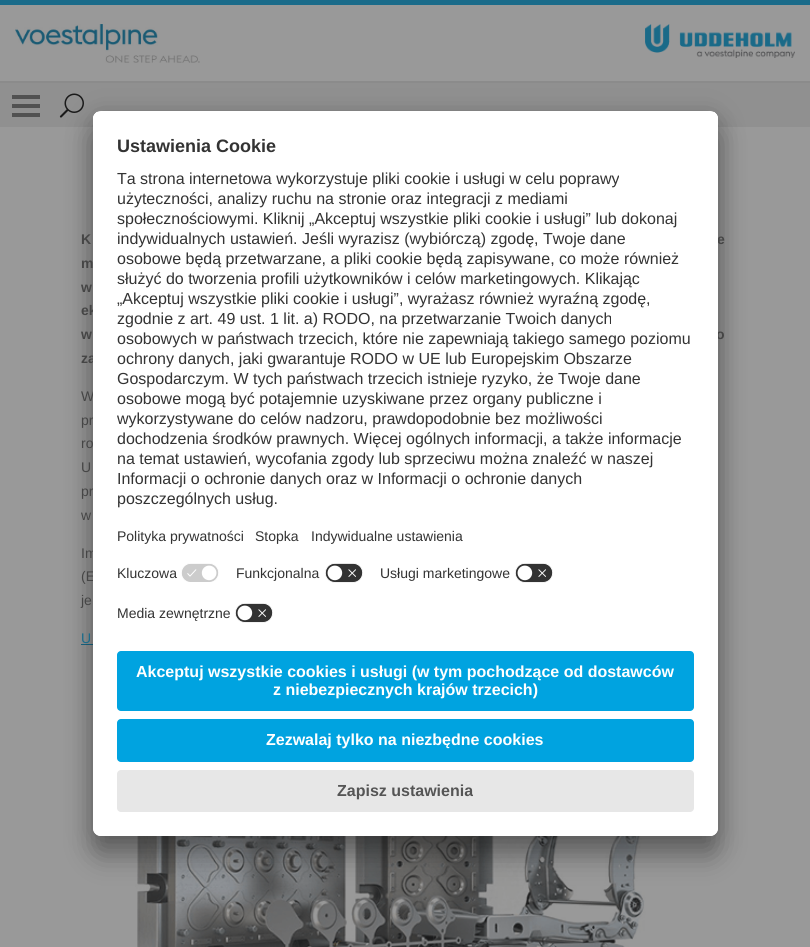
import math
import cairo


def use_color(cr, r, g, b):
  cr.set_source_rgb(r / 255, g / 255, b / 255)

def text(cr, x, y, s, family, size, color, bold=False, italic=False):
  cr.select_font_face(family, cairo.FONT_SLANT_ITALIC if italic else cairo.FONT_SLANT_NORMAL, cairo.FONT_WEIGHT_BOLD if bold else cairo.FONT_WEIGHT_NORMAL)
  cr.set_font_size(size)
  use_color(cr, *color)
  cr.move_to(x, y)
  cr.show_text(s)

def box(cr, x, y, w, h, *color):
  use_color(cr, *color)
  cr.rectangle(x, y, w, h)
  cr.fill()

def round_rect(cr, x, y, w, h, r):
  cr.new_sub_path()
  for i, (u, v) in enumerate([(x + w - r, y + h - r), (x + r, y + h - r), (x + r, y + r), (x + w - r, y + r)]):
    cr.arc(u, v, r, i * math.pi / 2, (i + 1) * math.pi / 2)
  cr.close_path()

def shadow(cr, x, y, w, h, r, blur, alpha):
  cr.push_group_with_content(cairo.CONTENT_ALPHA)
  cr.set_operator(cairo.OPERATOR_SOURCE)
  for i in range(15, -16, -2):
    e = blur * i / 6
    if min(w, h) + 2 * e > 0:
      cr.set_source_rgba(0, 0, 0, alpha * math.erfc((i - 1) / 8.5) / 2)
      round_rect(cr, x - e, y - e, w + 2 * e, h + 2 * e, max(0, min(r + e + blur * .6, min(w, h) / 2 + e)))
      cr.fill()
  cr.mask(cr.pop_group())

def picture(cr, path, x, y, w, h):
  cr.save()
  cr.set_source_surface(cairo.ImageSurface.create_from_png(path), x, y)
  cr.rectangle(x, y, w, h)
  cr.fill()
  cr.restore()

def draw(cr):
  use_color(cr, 153, 153, 153)
  cr.paint()
  box(cr, 0, 0, 810, 5, 26, 107, 138)
  box(cr, 0, 81, 810, 2, 139, 139, 139)
  picture(cr, "img_01.png", 15, 24, 185, 39)
  picture(cr, "img_02.png", 645, 24, 150, 34)
  box(cr, 0, 83, 810, 44, 144, 144, 144)
  box(cr, 12, 95, 28, 4, 81, 81, 81)
  box(cr, 12, 104, 28, 4, 81, 81, 81)
  box(cr, 12, 113, 28, 4, 81, 81, 81)
  picture(cr, "img_03.png", 59, 93, 25, 25)
  box(cr, 81, 644, 12, 1, 26, 107, 138)
  picture(cr, "img_06.png", 135, 836, 529, 111)
  use_color(cr, 0, 0, 0)
  shadow(cr, 93, 131, 625, 725, 8, 14, 0.3)
  shadow(cr, 93, 116, 625, 725, 8, 13, 0.22)
  text(cr, 81, 244, "K", "Liberation Sans", 14, (69, 69, 69), bold=True)
  text(cr, 717, 244, "e", "Liberation Sans", 14, (69, 69, 69), bold=True)
  text(cr, 81, 268, "m", "Liberation Sans", 14, (69, 69, 69), bold=True)
  text(cr, 81, 292, "w", "Liberation Sans", 14, (69, 69, 69), bold=True)
  text(cr, 81, 315, "ek", "Liberation Sans", 14, (69, 69, 69), bold=True)
  text(cr, 81, 339, "w", "Liberation Sans", 14, (69, 69, 69), bold=True)
  text(cr, 716, 339, "o", "Liberation Sans", 14, (69, 69, 69), bold=True)
  text(cr, 81, 363, "za", "Liberation Sans", 14, (69, 69, 69), bold=True)
  text(cr, 81, 401, "W", "Liberation Sans", 14, (69, 69, 69))
  text(cr, 81, 425, "pr", "Liberation Sans", 14, (69, 69, 69))
  text(cr, 81, 448, "ro", "Liberation Sans", 14, (69, 69, 69))
  text(cr, 81, 472, "U", "Liberation Sans", 14, (69, 69, 69))
  text(cr, 81, 496, "pr", "Liberation Sans", 14, (69, 69, 69))
  text(cr, 81, 520, "w", "Liberation Sans", 14, (69, 69, 69))
  text(cr, 81, 558, "Im", "Liberation Sans", 14, (69, 69, 69))
  text(cr, 81, 581, "(E", "Liberation Sans", 14, (69, 69, 69))
  use_color(cr, 255, 255, 255)
  round_rect(cr, 93, 111, 625, 725, 8)
  cr.fill()
  cr.save()
  round_rect(cr, 93, 111, 625, 725, 8)
  cr.clip()
  cr.new_path()
  cr.move_to(101, 111)
  cr.line_to(710, 111)
  cr.curve_to(714.5, 111, 718, 114.5, 718, 119)
  cr.line_to(718, 639)
  cr.line_to(93, 639)
  cr.line_to(93, 119)
  cr.curve_to(93, 114.5, 96.5, 111, 101, 111)
  cr.close_path()
  cr.clip()
  box(cr, 93, 112, 625, 527, 255, 255, 255)
  box(cr, 93, 112, 625, 447, 255, 255, 255)
  cr.restore()
  text(cr, 255, 541, "Stopka", "Liberation Sans", 14, (51, 51, 51))
  text(cr, 117, 541, "Polityka prywatności", "Liberation Sans", 14, (51, 51, 51))
  text(cr, 117, 152, "Ustawienia Cookie", "Liberation Sans", 18, (51, 51, 51), bold=True)
  picture(cr, "img_05.png", 235, 603, 38, 20)
  picture(cr, "img_05.png", 515, 563, 38, 20)
  picture(cr, "img_05.png", 325, 563, 38, 20)
  picture(cr, "img_04.png", 181, 563, 38, 19)
  text(cr, 117, 504, "poszczególnych usług.", "Liberation Sans", 16, (51, 51, 51))
  text(cr, 117, 484, "Informacji o ochronie danych oraz w Informacji o ochronie danych", "Liberation Sans", 16, (51, 51, 51))
  text(cr, 117, 464, "na temat ustawień, wycofania zgody lub sprzeciwu można znaleźć w naszej", "Liberation Sans", 16, (51, 51, 51))
  text(cr, 117, 444, "dochodzenia środków prawnych. Więcej ogólnych informacji, a także informacje", "Liberation Sans", 16, (51, 51, 51))
  text(cr, 117, 424, "wykorzystywane do celów nadzoru, prawdopodobnie bez możliwości", "Liberation Sans", 16, (51, 51, 51))
  text(cr, 117, 404, "osobowe mogą być potajemnie uzyskiwane przez organy publiczne i", "Liberation Sans", 16, (51, 51, 51))
  text(cr, 117, 384, "Gospodarczym. W tych państwach trzecich istnieje ryzyko, że Twoje dane", "Liberation Sans", 16, (51, 51, 51))
  text(cr, 117, 364, "ochrony danych, jaki gwarantuje RODO w UE lub Europejskim Obszarze", "Liberation Sans", 16, (51, 51, 51))
  text(cr, 117, 344, "osobowych w państwach trzecich, które nie zapewniają takiego samego poziomu", "Liberation Sans", 16, (51, 51, 51))
  text(cr, 117, 324, "zgodnie z art. 49 ust. 1 lit. a) RODO, na przetwarzanie Twoich danych", "Liberation Sans", 16, (51, 51, 51))
  text(cr, 117, 304, "„Akceptuj wszystkie pliki cookie i usługi”, wyrażasz również wyraźną zgodę,", "Liberation Sans", 16, (51, 51, 51))
  text(cr, 117, 284, "służyć do tworzenia profili użytkowników i celów marketingowych. Klikając", "Liberation Sans", 16, (51, 51, 51))
  text(cr, 117, 264, "osobowe będą przetwarzane, a pliki cookie będą zapisywane, co może również", "Liberation Sans", 16, (51, 51, 51))
  text(cr, 117, 244, "indywidualnych ustawień. Jeśli wyrazisz (wybiórczą) zgodę, Twoje dane", "Liberation Sans", 16, (51, 51, 51))
  text(cr, 117, 224, "społecznościowymi. Kliknij „Akceptuj wszystkie pliki cookie i usługi” lub dokonaj", "Liberation Sans", 16, (51, 51, 51))
  text(cr, 117, 204, "użyteczności, analizy ruchu na stronie oraz integracji z mediami", "Liberation Sans", 16, (51, 51, 51))
  text(cr, 117, 184, "Ta strona internetowa wykorzystuje pliki cookie i usługi w celu poprawy", "Liberation Sans", 16, (51, 51, 51))
  text(cr, 117, 618, "Media zewnętrzne", "Liberation Sans", 14, (51, 51, 51))
  text(cr, 380, 578, "Usługi marketingowe", "Liberation Sans", 14, (51, 51, 51))
  text(cr, 236, 578, "Funkcjonalna", "Liberation Sans", 14, (51, 51, 51))
  text(cr, 117, 578, "Kluczowa", "Liberation Sans", 14, (51, 51, 51))
  text(cr, 311, 541, "Indywidualne ustawienia", "Liberation Sans", 14, (51, 51, 51))
  use_color(cr, 255, 255, 255)
  cr.new_path()
  cr.move_to(93, 639)
  cr.line_to(718, 639)
  cr.line_to(718, 828)
  cr.curve_to(718, 832.5, 714.5, 836, 710, 836)
  cr.line_to(101, 836)
  cr.curve_to(96.5, 836, 93, 832.5, 93, 828)
  cr.close_path()
  cr.fill()
  use_color(cr, 231, 231, 231)
  round_rect(cr, 117, 770, 577, 42, 4)
  cr.fill()
  text(cr, 337, 796, "Zapisz ustawienia", "Liberation Sans", 16, (85, 85, 85), bold=True)
  use_color(cr, 0, 163, 224)
  round_rect(cr, 117, 719, 577, 43, 4)
  cr.fill()
  text(cr, 266, 745, "Zezwalaj tylko na niezbędne cookies", "Liberation Sans", 16, (255, 255, 255), bold=True)
  use_color(cr, 0, 163, 224)
  round_rect(cr, 117, 651, 577, 60, 4)
  cr.fill()
  text(cr, 273, 695, "z niebezpiecznych krajów trzecich)", "Liberation Sans", 16, (255, 255, 255), bold=True)
  text(cr, 136, 677, "Akceptuj wszystkie cookies i usługi (w tym pochodzące od dostawców", "Liberation Sans", 16, (255, 255, 255), bold=True)
  text(cr, 81, 605, "je", "Liberation Sans", 14, (69, 69, 69))
  text(cr, 81, 643, "U", "Liberation Sans", 14, (26, 107, 138))


surface = cairo.ImageSurface(cairo.FORMAT_RGB24, 810, 947)
cr = cairo.Context(surface)
options = cairo.FontOptions()
options.set_hint_metrics(cairo.HINT_METRICS_OFF)
options.set_hint_style(cairo.HINT_STYLE_NONE)
cr.set_font_options(options)
cr.set_miter_limit(4)
draw(cr)
surface.write_to_png("out.png")
